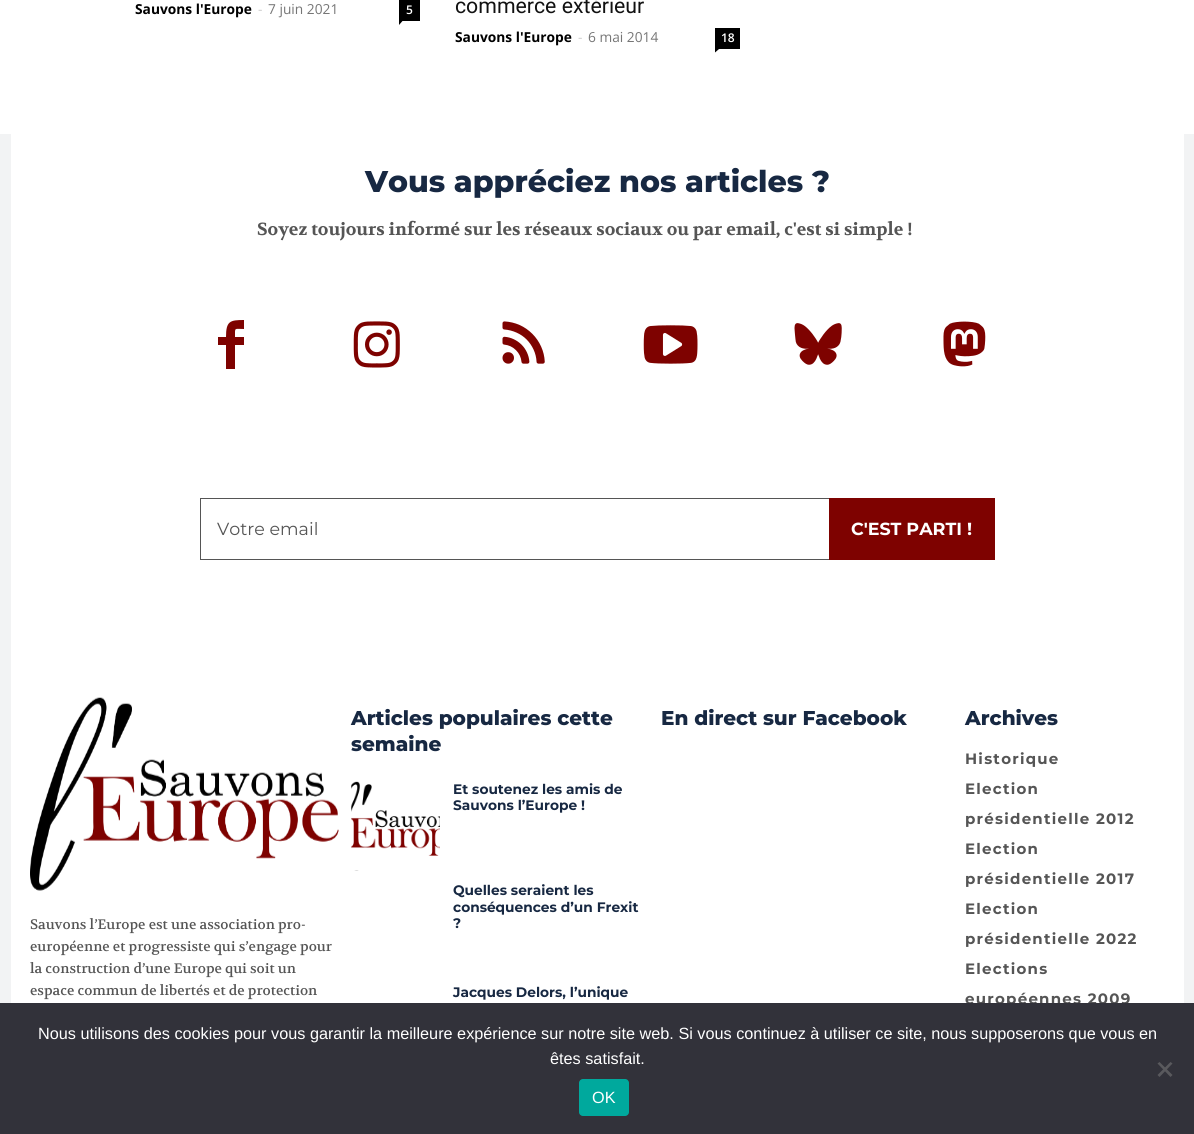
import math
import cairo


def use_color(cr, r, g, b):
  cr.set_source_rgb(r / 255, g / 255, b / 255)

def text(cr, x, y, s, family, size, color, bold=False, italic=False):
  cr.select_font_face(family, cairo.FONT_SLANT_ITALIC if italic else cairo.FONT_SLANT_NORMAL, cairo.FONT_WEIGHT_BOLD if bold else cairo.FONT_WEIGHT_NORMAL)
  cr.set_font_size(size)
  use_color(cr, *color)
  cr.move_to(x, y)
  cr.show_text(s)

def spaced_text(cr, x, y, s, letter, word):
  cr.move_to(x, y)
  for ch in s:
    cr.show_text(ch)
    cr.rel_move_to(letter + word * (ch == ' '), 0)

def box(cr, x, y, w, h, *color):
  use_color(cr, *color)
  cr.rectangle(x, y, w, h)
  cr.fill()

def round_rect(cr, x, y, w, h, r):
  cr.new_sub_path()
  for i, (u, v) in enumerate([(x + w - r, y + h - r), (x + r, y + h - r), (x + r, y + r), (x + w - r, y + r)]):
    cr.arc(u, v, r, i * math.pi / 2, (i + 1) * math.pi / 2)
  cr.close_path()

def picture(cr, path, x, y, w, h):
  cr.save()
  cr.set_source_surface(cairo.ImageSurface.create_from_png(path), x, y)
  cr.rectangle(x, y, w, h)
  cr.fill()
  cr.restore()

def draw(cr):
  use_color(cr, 255, 255, 255)
  cr.paint()
  box(cr, 399, 0, 21, 21, 0, 0, 0)
  cr.new_path()
  cr.move_to(399, 21)
  cr.line_to(402.5, 21)
  cr.line_to(399, 25)
  cr.close_path()
  cr.fill()
  box(cr, 715, 28, 25, 21, 0, 0, 0)
  cr.new_path()
  cr.move_to(715, 49)
  cr.line_to(719, 49)
  cr.line_to(715, 52.5)
  cr.close_path()
  cr.fill()
  box(cr, 0, 134, 1194, 869, 242, 243, 244)
  box(cr, 11, 134, 1173, 869, 255, 255, 255)
  use_color(cr, 126, 2, 0)
  cr.new_path()
  cr.move_to(244, 329)
  cr.curve_to(234, 329, 235, 327, 235, 337)
  cr.line_to(244, 337)
  cr.line_to(244, 345)
  cr.line_to(235, 345)
  cr.line_to(235, 369)
  cr.line_to(226, 369)
  cr.line_to(226, 345)
  cr.line_to(218, 345)
  cr.line_to(218, 337)
  cr.line_to(226, 337)
  cr.curve_to(226, 321, 230, 320, 244, 320)
  cr.close_path()
  cr.fill()
  picture(cr, "img_01.png", 353, 321, 47, 47)
  picture(cr, "img_02.png", 502, 321, 43, 43)
  picture(cr, "img_03.png", 643, 325, 55, 39)
  picture(cr, "img_04.png", 794, 323, 48, 42)
  picture(cr, "img_05.png", 943, 321, 43, 46)
  box(cr, 200, 498, 629, 1, 85, 85, 85)
  box(cr, 200, 559, 629, 1, 85, 85, 85)
  box(cr, 200, 498, 1, 62, 85, 85, 85)
  box(cr, 829, 498, 166, 62, 126, 2, 0)
  picture(cr, "img_06.png", 30, 697, 309, 194)
  picture(cr, "img_07.png", 351, 781, 89, 90)
  text(cr, 135, 14, "Sauvons l'Europe", "Open Sans", 13.75, (0, 0, 0), bold=True)
  text(cr, 258, 14, "-", "Open Sans", 13.75, (204, 204, 204))
  text(cr, 268, 14, "7 juin 2021", "Open Sans", 13.75, (118, 118, 118))
  text(cr, 406, 14, "5", "Open Sans SemiBold", 12, (255, 255, 255))
  text(cr, 455, 13, "commerce extérieur", "Roboto", 21.25, (17, 17, 17))
  text(cr, 455, 42, "Sauvons l'Europe", "Open Sans", 13.75, (0, 0, 0), bold=True)
  text(cr, 578, 42, "-", "Open Sans", 13.75, (204, 204, 204))
  text(cr, 588, 42, "6 mai 2014", "Open Sans", 13.75, (118, 118, 118))
  text(cr, 721, 42, "18", "Open Sans SemiBold", 12, (255, 255, 255))
  text(cr, 365, 192, "Vous appréciez nos articles ?", "Montserrat ExtraBold", 30, (23, 40, 66))
  text(cr, 257, 235, "Soyez toujours informé sur les réseaux sociaux ou par email, c'est si simple !", "Volkhov", 17.5, (85, 85, 85), bold=True)
  text(cr, 217, 535, "Votre email", "Montserrat", 17.5, (85, 85, 85))
  text(cr, 851, 535, "C'EST PARTI !", "Montserrat", 17.5, (255, 255, 255), bold=True)
  text(cr, 30, 929, "Sauvons l’Europe est une association pro-", "Volkhov", 13.75, (85, 85, 85))
  text(cr, 30, 951, "européenne et progressiste qui s’engage pour", "Volkhov", 13.75, (85, 85, 85))
  text(cr, 30, 973, "la construction d’une Europe qui soit un", "Volkhov", 13.75, (85, 85, 85))
  text(cr, 30, 995, "espace commun de libertés et de protection", "Volkhov", 13.75, (85, 85, 85))
  text(cr, 351, 725, "Articles populaires cette", "Montserrat ExtraBold", 20, (23, 40, 66))
  text(cr, 351, 751, "semaine", "Montserrat ExtraBold", 20, (23, 40, 66))
  text(cr, 453, 794, "Et soutenez les amis de", "Montserrat", 13.75, (23, 40, 66), bold=True)
  text(cr, 453, 810, "Sauvons l’Europe !", "Montserrat", 13.75, (23, 40, 66), bold=True)
  text(cr, 453, 895, "Quelles seraient les", "Montserrat", 13.75, (23, 40, 66), bold=True)
  text(cr, 453, 912, "conséquences d’un Frexit", "Montserrat", 13.75, (23, 40, 66), bold=True)
  text(cr, 453, 928, "?", "Montserrat", 13.75, (23, 40, 66), bold=True)
  text(cr, 453, 997, "Jacques Delors, l’unique", "Montserrat", 13.75, (23, 40, 66), bold=True)
  text(cr, 661, 725, "En direct sur Facebook", "Montserrat ExtraBold", 20, (23, 40, 66))
  text(cr, 965, 725, "Archives", "Montserrat ExtraBold", 20, (23, 40, 66))
  cr.select_font_face("Montserrat", cairo.FONT_SLANT_NORMAL, cairo.FONT_WEIGHT_BOLD)
  cr.set_font_size(15)
  use_color(cr, 85, 85, 85)
  spaced_text(cr, 965, 764, "Historique", 1.25, 0)
  spaced_text(cr, 965, 794, "Election", 1.25, 0)
  spaced_text(cr, 965, 824, "présidentielle 2012", 1.25, 0)
  spaced_text(cr, 965, 854, "Election", 1.25, 0)
  spaced_text(cr, 965, 884, "présidentielle 2017", 1.25, 0)
  spaced_text(cr, 965, 914, "Election", 1.25, 0)
  spaced_text(cr, 965, 944, "présidentielle 2022", 1.25, 0)
  spaced_text(cr, 965, 974, "Elections", 1.25, 0)
  spaced_text(cr, 965, 1004, "européennes 2009", 1.25, 0)
  box(cr, 0, 1003, 1194, 131, 50, 50, 58)
  text(cr, 38, 1039, "Nous utilisons des cookies pour vous garantir la meilleure expérience sur notre site web. Si vous continuez à utiliser ce site, nous supposerons que vous en", "Liberation Sans", 16.25, (255, 255, 255))
  text(cr, 550, 1064, "êtes satisfait.", "Liberation Sans", 16.25, (255, 255, 255))
  use_color(cr, 89, 89, 93)
  cr.new_path()
  cr.move_to(1170.5, 1062)
  cr.line_to(1172.5, 1063.5)
  cr.line_to(1159.5, 1077)
  cr.line_to(1157.5, 1075)
  cr.close_path()
  cr.fill()
  cr.new_path()
  cr.move_to(1157.5, 1063.5)
  cr.line_to(1159.5, 1062)
  cr.line_to(1172.5, 1075)
  cr.line_to(1170.5, 1077)
  cr.close_path()
  cr.fill()
  use_color(cr, 0, 169, 157)
  round_rect(cr, 579, 1079, 50, 37, 4)
  cr.fill()
  text(cr, 592, 1103, "OK", "Liberation Sans", 16.25, (255, 255, 255))


surface = cairo.ImageSurface(cairo.FORMAT_RGB24, 1194, 1134)
cr = cairo.Context(surface)
options = cairo.FontOptions()
options.set_hint_metrics(cairo.HINT_METRICS_OFF)
options.set_hint_style(cairo.HINT_STYLE_NONE)
cr.set_font_options(options)
cr.set_miter_limit(4)
draw(cr)
surface.write_to_png("out.png")
